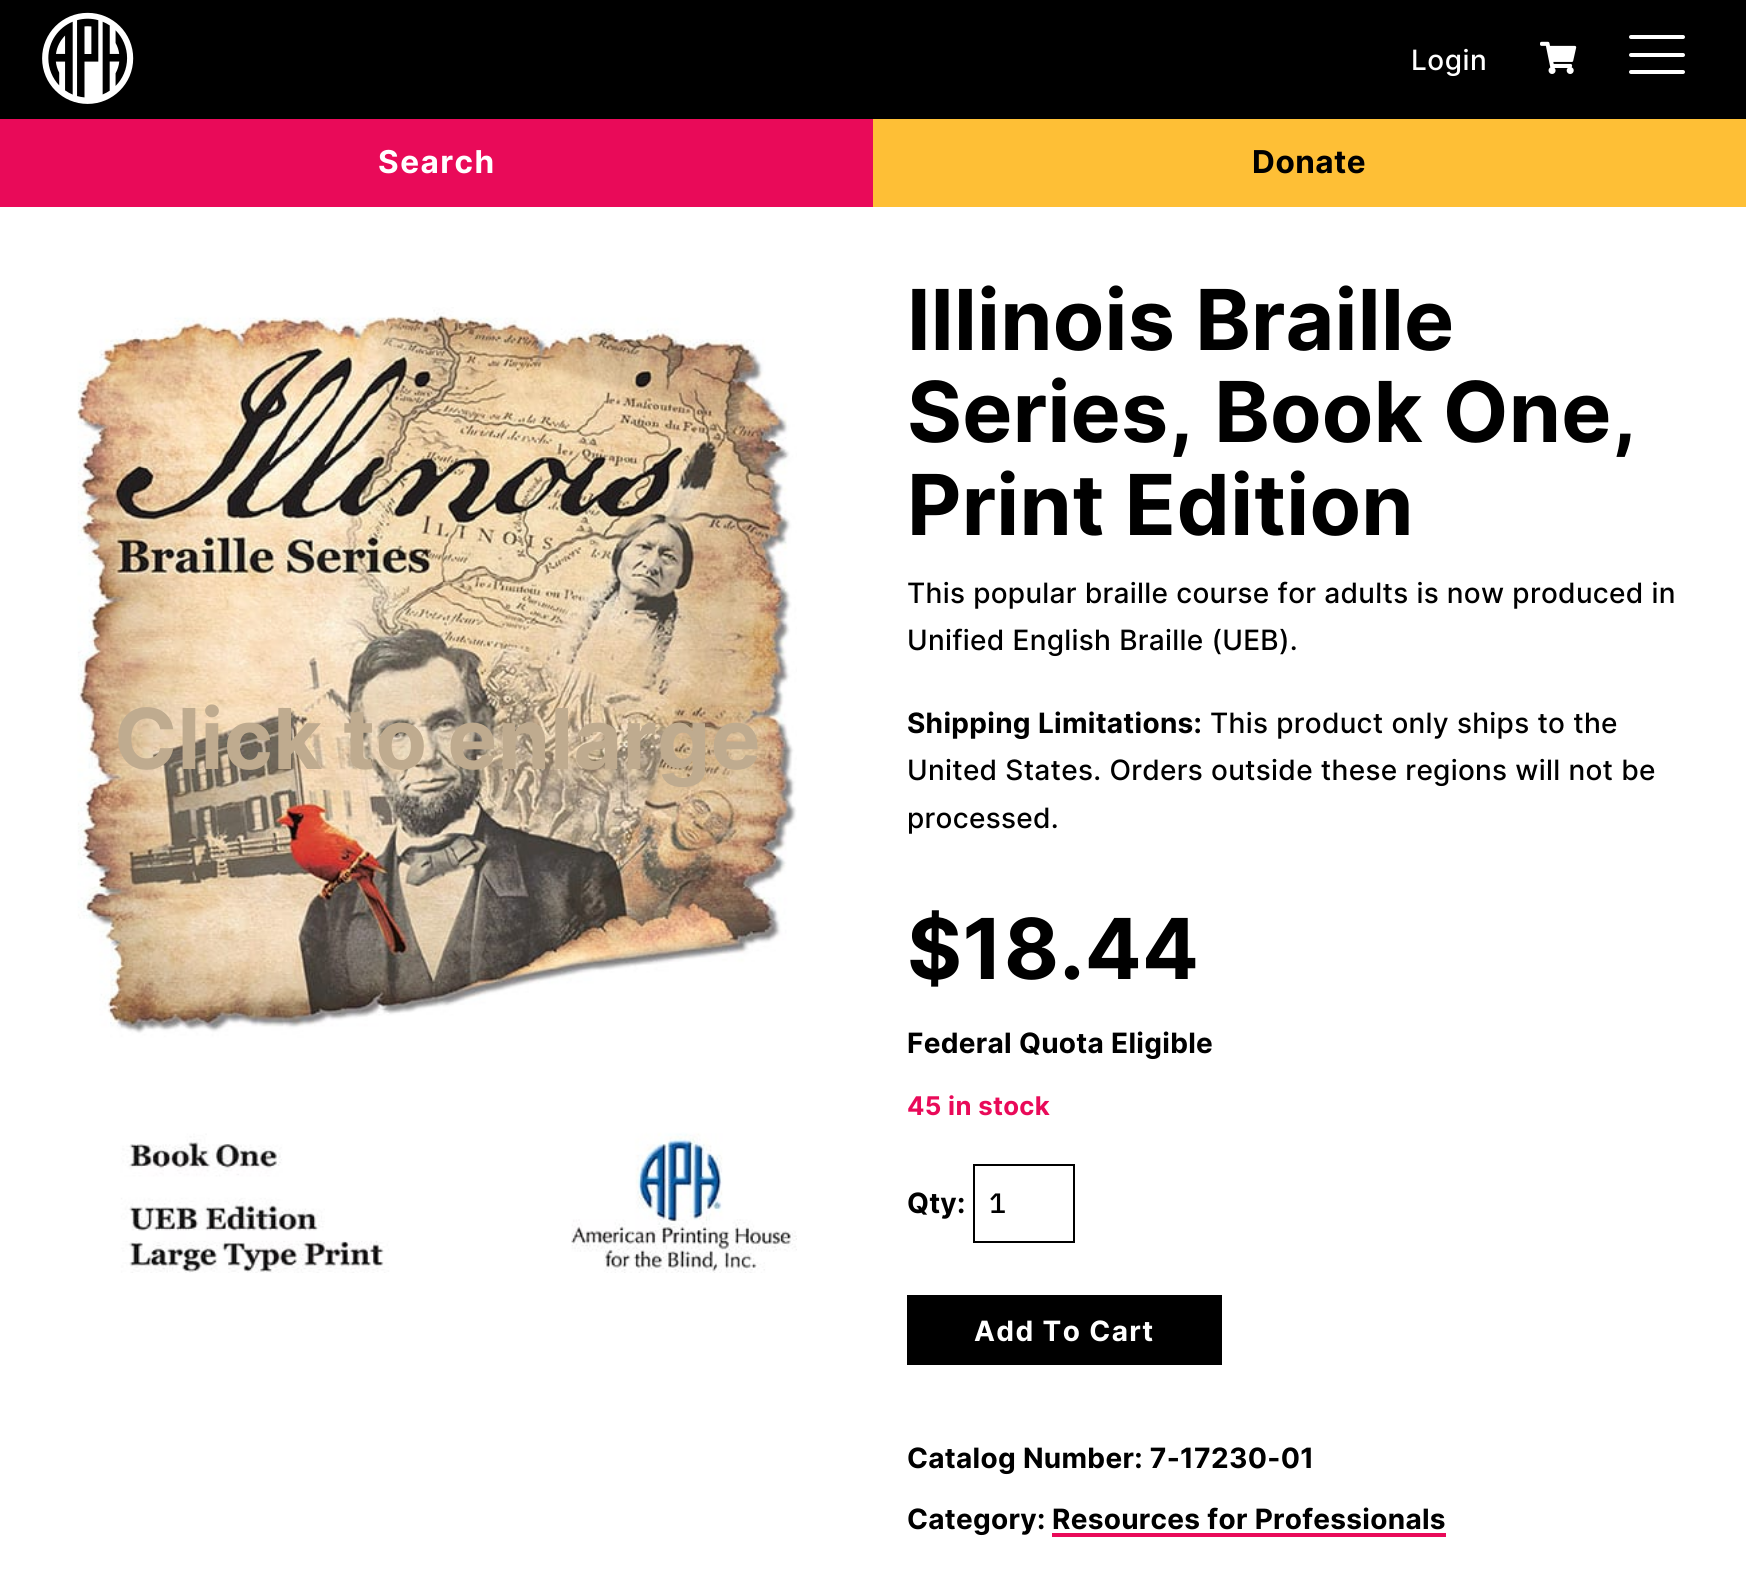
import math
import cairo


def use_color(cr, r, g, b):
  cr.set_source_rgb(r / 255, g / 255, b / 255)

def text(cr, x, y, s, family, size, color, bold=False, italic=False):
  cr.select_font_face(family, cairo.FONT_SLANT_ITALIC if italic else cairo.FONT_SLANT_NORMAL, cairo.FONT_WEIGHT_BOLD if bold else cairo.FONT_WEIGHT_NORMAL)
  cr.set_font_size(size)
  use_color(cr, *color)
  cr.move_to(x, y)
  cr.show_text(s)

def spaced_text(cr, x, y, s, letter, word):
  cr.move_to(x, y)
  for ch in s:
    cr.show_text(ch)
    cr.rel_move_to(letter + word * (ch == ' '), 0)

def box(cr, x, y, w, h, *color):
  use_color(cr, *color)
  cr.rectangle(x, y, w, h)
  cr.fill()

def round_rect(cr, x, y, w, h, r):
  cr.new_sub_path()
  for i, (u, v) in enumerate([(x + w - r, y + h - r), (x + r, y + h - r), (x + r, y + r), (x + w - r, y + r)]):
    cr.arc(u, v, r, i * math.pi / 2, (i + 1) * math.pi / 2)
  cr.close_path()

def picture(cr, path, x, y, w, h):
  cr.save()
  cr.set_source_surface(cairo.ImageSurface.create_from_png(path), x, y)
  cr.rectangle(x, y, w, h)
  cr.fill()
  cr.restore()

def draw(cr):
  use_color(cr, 255, 255, 255)
  cr.paint()
  box(cr, 0, 0, 1746, 119, 0, 0, 0)
  picture(cr, "img_01.png", 42, 12, 92, 92)
  picture(cr, "img_02.png", 1540, 41, 37, 33)
  use_color(cr, 255, 255, 255)
  round_rect(cr, 1629, 35, 56, 4, 2)
  cr.fill()
  round_rect(cr, 1629, 53, 56, 4, 2)
  cr.fill()
  round_rect(cr, 1629, 70, 56, 4, 2)
  cr.fill()
  box(cr, 0, 119, 873, 88, 233, 10, 89)
  box(cr, 873, 119, 873, 88, 254, 191, 54)
  picture(cr, "img_03.png", 77, 307, 720, 966)
  cr.rectangle(974, 1165, 100, 77)
  use_color(cr, 0, 0, 0)
  cr.stroke()
  box(cr, 907, 1295, 315, 70, 0, 0, 0)
  box(cr, 1052, 1533, 394, 4, 233, 10, 89)
  cr.select_font_face("Inter Medium")
  cr.set_font_size(28)
  use_color(cr, 255, 255, 255)
  spaced_text(cr, 1411, 70, "Login", 0.5, 0)
  cr.select_font_face("Inter", cairo.FONT_SLANT_NORMAL, cairo.FONT_WEIGHT_BOLD)
  cr.set_font_size(31.5)
  spaced_text(cr, 378, 173, "Search", 1.5, 0)
  use_color(cr, 0, 0, 0)
  spaced_text(cr, 1252, 173, "Donate", 0.5, 0)
  cr.set_font_size(84)
  use_color(cr, 191, 171, 143)
  spaced_text(cr, 114, 769, "Click to enlarge", 0.28, 0.25)
  use_color(cr, 0, 0, 0)
  spaced_text(cr, 907, 350, "Illinois Braille", 0.28, 0.25)
  spaced_text(cr, 907, 442, "Series, Book One,", 0.28, 0.25)
  spaced_text(cr, 907, 535, "Print Edition", 0.28, 0.25)
  cr.select_font_face("Inter Medium")
  cr.set_font_size(28)
  spaced_text(cr, 907, 603, "This popular braille course for adults is now produced in", 0.28, 0.25)
  spaced_text(cr, 907, 650, "Unified English Braille (UEB).", 0.28, 0.25)
  cr.select_font_face("Inter", cairo.FONT_SLANT_NORMAL, cairo.FONT_WEIGHT_BOLD)
  spaced_text(cr, 907, 733, "Shipping Limitations:", 0.28, 0.25)
  cr.select_font_face("Inter Medium")
  spaced_text(cr, 1210, 733, "This product only ships to the", 0.28, 0.25)
  spaced_text(cr, 907, 780, "United States. Orders outside these regions will not be", 0.28, 0.25)
  spaced_text(cr, 907, 828, "processed.", 0.28, 0)
  cr.select_font_face("Inter", cairo.FONT_SLANT_NORMAL, cairo.FONT_WEIGHT_BOLD)
  cr.set_font_size(84)
  spaced_text(cr, 907, 979, "$18.44", 0.28, 0)
  cr.set_font_size(28)
  spaced_text(cr, 907, 1053, "Federal Quota Eligible", 0.28, 0.25)
  cr.set_font_size(25.75)
  use_color(cr, 233, 10, 89)
  spaced_text(cr, 907, 1115, "45 in stock", 0.28, 0.25)
  cr.set_font_size(28)
  use_color(cr, 0, 0, 0)
  spaced_text(cr, 907, 1213, "Qty:", 0.28, 0)
  text(cr, 989, 1213, "1", "IBM Plex Mono Medium", 28, (0, 0, 0))
  cr.select_font_face("Inter", cairo.FONT_SLANT_NORMAL, cairo.FONT_WEIGHT_BOLD)
  use_color(cr, 255, 255, 255)
  spaced_text(cr, 974, 1341, "Add To Cart", 1.4, 0)
  use_color(cr, 0, 0, 0)
  spaced_text(cr, 907, 1468, "Catalog Number: 7-17230-01", 0.28, 0.25)
  spaced_text(cr, 907, 1529, "Category:", 0.28, 0)
  spaced_text(cr, 1052, 1529, "Resources for Professionals", 0.28, 0.25)


surface = cairo.ImageSurface(cairo.FORMAT_RGB24, 1746, 1585)
cr = cairo.Context(surface)
options = cairo.FontOptions()
options.set_hint_metrics(cairo.HINT_METRICS_OFF)
options.set_hint_style(cairo.HINT_STYLE_NONE)
cr.set_font_options(options)
cr.set_miter_limit(4)
draw(cr)
surface.write_to_png("out.png")
